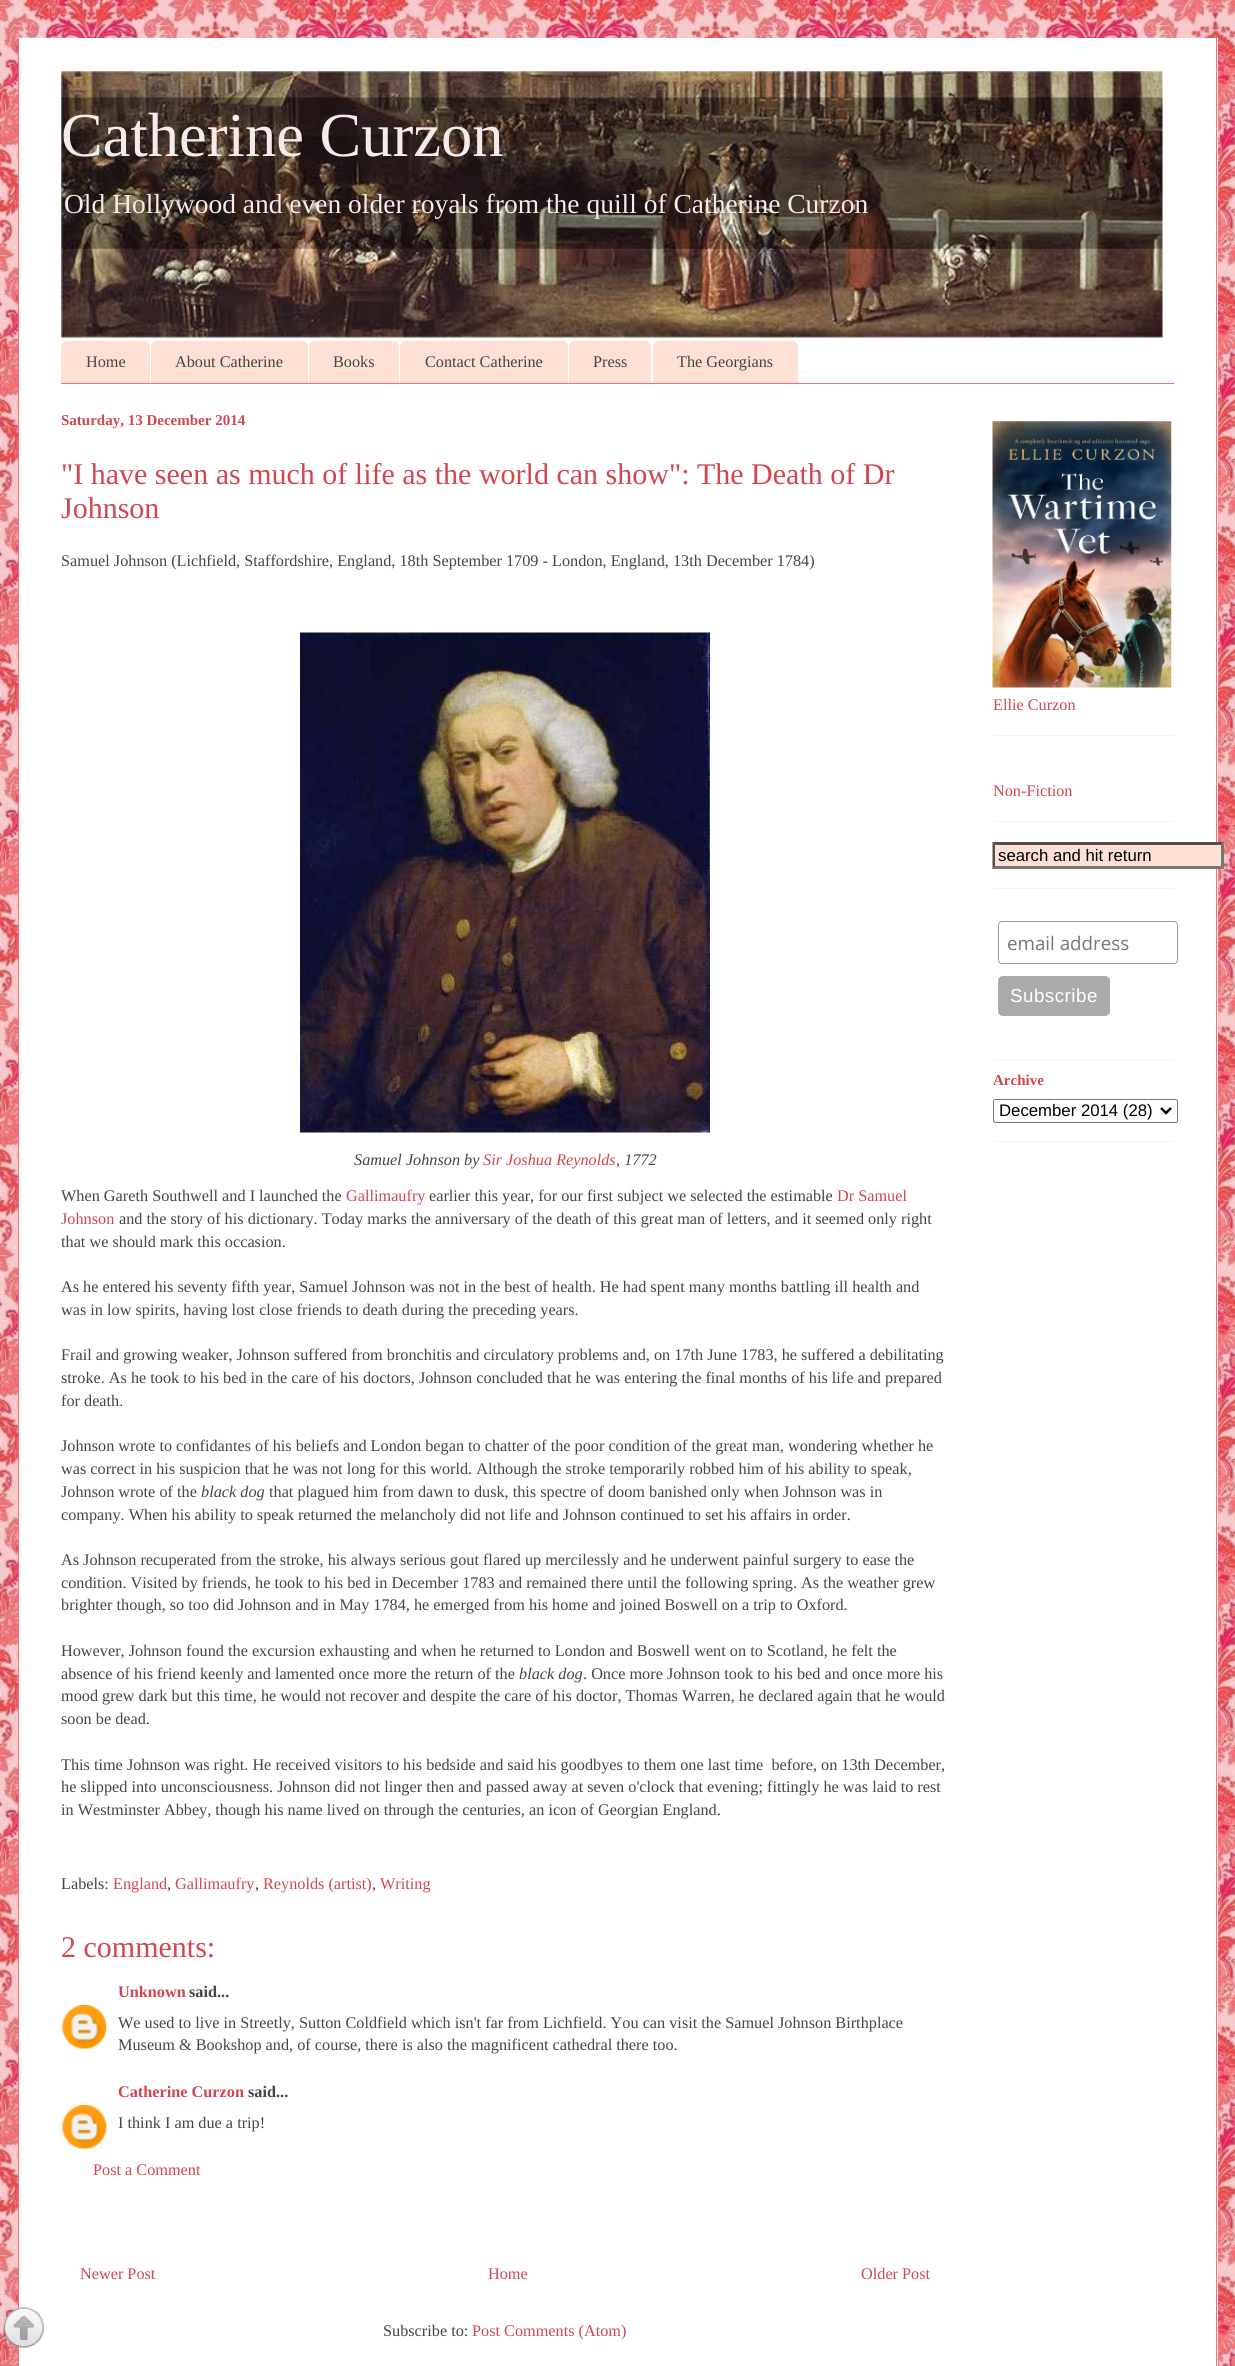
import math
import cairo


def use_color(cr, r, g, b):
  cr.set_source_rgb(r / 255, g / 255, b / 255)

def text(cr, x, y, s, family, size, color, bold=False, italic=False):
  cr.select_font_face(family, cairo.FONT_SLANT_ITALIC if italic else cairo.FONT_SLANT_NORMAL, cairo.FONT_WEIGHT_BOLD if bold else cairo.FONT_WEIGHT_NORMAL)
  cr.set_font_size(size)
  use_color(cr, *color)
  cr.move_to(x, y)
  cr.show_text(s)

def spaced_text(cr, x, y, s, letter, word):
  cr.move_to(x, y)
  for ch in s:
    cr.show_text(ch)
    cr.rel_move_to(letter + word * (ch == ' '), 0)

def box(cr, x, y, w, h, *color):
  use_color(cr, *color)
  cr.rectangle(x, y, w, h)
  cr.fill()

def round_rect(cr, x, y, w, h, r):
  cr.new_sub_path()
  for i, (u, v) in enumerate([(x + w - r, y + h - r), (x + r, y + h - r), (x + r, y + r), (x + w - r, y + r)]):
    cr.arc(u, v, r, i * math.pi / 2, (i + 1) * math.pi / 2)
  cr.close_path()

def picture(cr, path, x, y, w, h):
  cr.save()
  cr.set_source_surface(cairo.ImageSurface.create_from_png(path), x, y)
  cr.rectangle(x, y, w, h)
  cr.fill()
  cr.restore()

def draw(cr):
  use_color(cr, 255, 255, 255)
  cr.paint()
  picture(cr, "img_01.png", 0, 0, 1235, 2366)
  box(cr, 19, 38, 1199, 2328, 255, 255, 255)
  box(cr, 1216, 38, 1, 2328, 251, 106, 119)
  box(cr, 18, 38, 1, 2328, 251, 106, 119)
  picture(cr, "img_02.png", 61, 71, 1102, 267)
  box(cr, 61, 383, 1113, 1, 251, 106, 119)
  use_color(cr, 255, 224, 212)
  cr.new_path()
  cr.move_to(67, 341)
  cr.line_to(144, 341)
  cr.curve_to(147.5, 341, 150, 343.5, 150, 347)
  cr.line_to(150, 383)
  cr.line_to(61, 383)
  cr.line_to(61, 347)
  cr.curve_to(61, 343.5, 63.5, 341, 67, 341)
  cr.close_path()
  cr.fill()
  cr.new_path()
  cr.move_to(157, 341)
  cr.line_to(302, 341)
  cr.curve_to(305.5, 341, 308, 343.5, 308, 347)
  cr.line_to(308, 383)
  cr.line_to(151, 383)
  cr.line_to(151, 347)
  cr.curve_to(151, 343.5, 153.5, 341, 157, 341)
  cr.close_path()
  cr.fill()
  cr.new_path()
  cr.move_to(315, 341)
  cr.line_to(393, 341)
  cr.curve_to(396.5, 341, 399, 343.5, 399, 347)
  cr.line_to(399, 383)
  cr.line_to(309, 383)
  cr.line_to(309, 347)
  cr.curve_to(309, 343.5, 311.5, 341, 315, 341)
  cr.close_path()
  cr.fill()
  cr.new_path()
  cr.move_to(406, 341)
  cr.line_to(562, 341)
  cr.curve_to(565.5, 341, 568, 343.5, 568, 347)
  cr.line_to(568, 383)
  cr.line_to(400, 383)
  cr.line_to(400, 347)
  cr.curve_to(400, 343.5, 402.5, 341, 406, 341)
  cr.close_path()
  cr.fill()
  cr.new_path()
  cr.move_to(575, 341)
  cr.line_to(645, 341)
  cr.curve_to(648.5, 341, 651, 343.5, 651, 347)
  cr.line_to(651, 383)
  cr.line_to(569, 383)
  cr.line_to(569, 347)
  cr.curve_to(569, 343.5, 571.5, 341, 575, 341)
  cr.close_path()
  cr.fill()
  cr.new_path()
  cr.move_to(659, 341)
  cr.line_to(792, 341)
  cr.curve_to(795.5, 341, 798, 343.5, 798, 347)
  cr.line_to(798, 383)
  cr.line_to(653, 383)
  cr.line_to(653, 347)
  cr.curve_to(653, 343.5, 655.5, 341, 659, 341)
  cr.close_path()
  cr.fill()
  picture(cr, "img_03.png", 3, 2307, 41, 41)
  picture(cr, "img_04.png", 300, 632, 410, 501)
  picture(cr, "img_05.png", 62, 2005, 45, 44)
  picture(cr, "img_05.png", 62, 2105, 45, 44)
  box(cr, 993, 735, 181, 1, 245, 245, 245)
  picture(cr, "img_06.png", 992, 421, 180, 267)
  box(cr, 993, 821, 181, 1, 245, 245, 245)
  box(cr, 993, 888, 181, 1, 245, 245, 245)
  box(cr, 993, 843, 231, 26, 255, 224, 212)
  use_color(cr, 79, 79, 79)
  cr.new_path()
  cr.move_to(992, 842)
  cr.line_to(1224, 842)
  cr.line_to(1221, 845)
  cr.line_to(995, 845)
  cr.close_path()
  cr.fill()
  use_color(cr, 118, 118, 118)
  cr.new_path()
  cr.move_to(1224, 842.5)
  cr.line_to(1224, 869)
  cr.line_to(1221, 866)
  cr.line_to(1221, 845)
  cr.close_path()
  cr.fill()
  cr.new_path()
  cr.move_to(1224, 869)
  cr.line_to(992, 869)
  cr.line_to(995, 866)
  cr.line_to(1221, 866)
  cr.close_path()
  cr.fill()
  use_color(cr, 79, 79, 79)
  cr.new_path()
  cr.move_to(992.5, 869)
  cr.line_to(992.5, 842.5)
  cr.line_to(995, 845)
  cr.line_to(995, 866)
  cr.close_path()
  cr.fill()
  box(cr, 993, 1060, 181, 1, 245, 245, 245)
  round_rect(cr, 998.5, 921.5, 179, 42, 3.5)
  use_color(cr, 153, 153, 153)
  cr.set_line_width(1)
  cr.stroke()
  use_color(cr, 170, 170, 170)
  round_rect(cr, 998, 976, 112, 40, 5)
  cr.fill()
  box(cr, 993, 1141, 181, 1, 245, 245, 245)
  round_rect(cr, 993.5, 1099.5, 184, 23, 2)
  use_color(cr, 118, 118, 118)
  cr.stroke()
  cr.new_path()
  cr.move_to(1161, 1108)
  cr.line_to(1166, 1113)
  cr.line_to(1171, 1108)
  use_color(cr, 0, 0, 0)
  cr.set_line_width(2.5)
  cr.stroke()
  text(cr, 61, 156, "Catherine Curzon", "Liberation Serif", 62.5, (245, 235, 235))
  text(cr, 64, 213, "Old Hollywood and even older royals from the quill of Catherine Curzon", "Liberation Serif", 27.5, (245, 235, 235))
  text(cr, 86, 367, "Home", "Liberation Serif", 16.25, (69, 69, 69))
  text(cr, 175, 367, "About Catherine", "Liberation Serif", 16.25, (69, 69, 69))
  text(cr, 333, 367, "Books", "Liberation Serif", 16.25, (69, 69, 69))
  text(cr, 425, 367, "Contact Catherine", "Liberation Serif", 16.25, (69, 69, 69))
  text(cr, 593, 367, "Press", "Liberation Serif", 16.25, (69, 69, 69))
  text(cr, 677, 367, "The Georgians", "Liberation Serif", 16.25, (69, 69, 69))
  text(cr, 61, 425, "Saturday, 13 December 2014", "Liberation Serif", 15, (210, 70, 80), bold=True)
  text(cr, 61, 484, "\"I have seen as much of life as the world can show\": The Death of Dr", "Liberation Serif", 30, (210, 70, 80))
  text(cr, 61, 518, "Johnson", "Liberation Serif", 30, (210, 70, 80))
  text(cr, 61, 566, "Samuel Johnson (Lichfield, Staffordshire, England, 18th September 1709 - London, England, 13th December 1784)", "Liberation Serif", 16.25, (69, 69, 69))
  text(cr, 354, 1165, "Samuel Johnson by", "Liberation Serif", 16.25, (69, 69, 69), italic=True)
  text(cr, 483, 1165, "Sir Joshua Reynolds", "Liberation Serif", 16.25, (210, 70, 80), italic=True)
  text(cr, 616, 1165, ", 1772", "Liberation Serif", 16.25, (69, 69, 69), italic=True)
  text(cr, 61, 1201, "When Gareth Southwell and I launched the", "Liberation Serif", 16.25, (69, 69, 69))
  text(cr, 346, 1201, "Gallimaufry", "Liberation Serif", 16.25, (210, 70, 80))
  text(cr, 429, 1201, "earlier this year, for our first subject we selected the estimable", "Liberation Serif", 16.25, (69, 69, 69))
  text(cr, 837, 1201, "Dr Samuel", "Liberation Serif", 16.25, (210, 70, 80))
  text(cr, 61, 1224, "Johnson", "Liberation Serif", 16.25, (210, 70, 80))
  text(cr, 119, 1224, "and the story of his dictionary. Today marks the anniversary of the death of this great man of letters, and it seemed only right", "Liberation Serif", 16.25, (69, 69, 69))
  text(cr, 61, 1247, "that we should mark this occasion.", "Liberation Serif", 16.25, (69, 69, 69))
  text(cr, 61, 1292, "As he entered his seventy fifth year, Samuel Johnson was not in the best of health. He had spent many months battling ill health and", "Liberation Serif", 16.25, (69, 69, 69))
  text(cr, 61, 1315, "was in low spirits, having lost close friends to death during the preceding years.", "Liberation Serif", 16.25, (69, 69, 69))
  text(cr, 61, 1360, "Frail and growing weaker, Johnson suffered from bronchitis and circulatory problems and, on 17th June 1783, he suffered a debilitating", "Liberation Serif", 16.25, (69, 69, 69))
  text(cr, 61, 1383, "stroke. As he took to his bed in the care of his doctors, Johnson concluded that he was entering the final months of his life and prepared", "Liberation Serif", 16.25, (69, 69, 69))
  text(cr, 61, 1406, "for death.", "Liberation Serif", 16.25, (69, 69, 69))
  text(cr, 61, 1451, "Johnson wrote to confidantes of his beliefs and London began to chatter of the poor condition of the great man, wondering whether he", "Liberation Serif", 16.25, (69, 69, 69))
  text(cr, 61, 1474, "was correct in his suspicion that he was not long for this world. Although the stroke temporarily robbed him of his ability to speak,", "Liberation Serif", 16.25, (69, 69, 69))
  text(cr, 61, 1497, "Johnson wrote of the", "Liberation Serif", 16.25, (69, 69, 69))
  text(cr, 201, 1497, "black dog", "Liberation Serif", 16.25, (69, 69, 69), italic=True)
  text(cr, 269, 1497, "that plagued him from dawn to dusk, this spectre of doom banished only when Johnson was in", "Liberation Serif", 16.25, (69, 69, 69))
  text(cr, 61, 1520, "company. When his ability to speak returned the melancholy did not life and Johnson continued to set his affairs in order.", "Liberation Serif", 16.25, (69, 69, 69))
  text(cr, 61, 1565, "As Johnson recuperated from the stroke, his always serious gout flared up mercilessly and he underwent painful surgery to ease the", "Liberation Serif", 16.25, (69, 69, 69))
  text(cr, 61, 1588, "condition. Visited by friends, he took to his bed in December 1783 and remained there until the following spring. As the weather grew", "Liberation Serif", 16.25, (69, 69, 69))
  text(cr, 61, 1610, "brighter though, so too did Johnson and in May 1784, he emerged from his home and joined Boswell on a trip to Oxford.", "Liberation Serif", 16.25, (69, 69, 69))
  text(cr, 61, 1656, "However, Johnson found the excursion exhausting and when he returned to London and Boswell went on to Scotland, he felt the", "Liberation Serif", 16.25, (69, 69, 69))
  text(cr, 61, 1679, "absence of his friend keenly and lamented once more the return of the", "Liberation Serif", 16.25, (69, 69, 69))
  text(cr, 519, 1679, "black dog", "Liberation Serif", 16.25, (69, 69, 69), italic=True)
  text(cr, 583, 1679, ". Once more Johnson took to his bed and once more his", "Liberation Serif", 16.25, (69, 69, 69))
  text(cr, 61, 1701, "mood grew dark but this time, he would not recover and despite the care of his doctor, Thomas Warren, he declared again that he would", "Liberation Serif", 16.25, (69, 69, 69))
  text(cr, 61, 1724, "soon be dead.", "Liberation Serif", 16.25, (69, 69, 69))
  text(cr, 61, 1770, "This time Johnson was right. He received visitors to his bedside and said his goodbyes to them one last time  before, on 13th December,", "Liberation Serif", 16.25, (69, 69, 69))
  text(cr, 61, 1792, "he slipped into unconsciousness. Johnson did not linger then and passed away at seven o'clock that evening; fittingly he was laid to rest", "Liberation Serif", 16.25, (69, 69, 69))
  text(cr, 61, 1815, "in Westminster Abbey, though his name lived on through the centuries, an icon of Georgian England.", "Liberation Serif", 16.25, (69, 69, 69))
  text(cr, 61, 1889, "Labels:", "Liberation Serif", 16.25, (69, 69, 69))
  text(cr, 113, 1889, "England", "Liberation Serif", 16.25, (210, 70, 80))
  text(cr, 167, 1889, ",", "Liberation Serif", 16.25, (69, 69, 69))
  text(cr, 175, 1889, "Gallimaufry", "Liberation Serif", 16.25, (210, 70, 80))
  text(cr, 255, 1889, ",", "Liberation Serif", 16.25, (69, 69, 69))
  text(cr, 263, 1889, "Reynolds (artist)", "Liberation Serif", 16.25, (210, 70, 80))
  text(cr, 372, 1889, ",", "Liberation Serif", 16.25, (69, 69, 69))
  text(cr, 380, 1889, "Writing", "Liberation Serif", 16.25, (210, 70, 80))
  text(cr, 61, 1957, "2 comments:", "Liberation Serif", 30, (210, 70, 80))
  text(cr, 118, 1997, "Unknown", "Liberation Serif", 16.25, (210, 70, 80), bold=True)
  text(cr, 189, 1997, "said...", "Liberation Serif", 16.25, (69, 69, 69), bold=True)
  text(cr, 118, 2028, "We used to live in Streetly, Sutton Coldfield which isn't far from Lichfield. You can visit the Samuel Johnson Birthplace", "Liberation Serif", 16.25, (69, 69, 69))
  text(cr, 118, 2050, "Museum & Bookshop and, of course, there is also the magnificent cathedral there too.", "Liberation Serif", 16.25, (69, 69, 69))
  text(cr, 118, 2097, "Catherine Curzon", "Liberation Serif", 16.25, (210, 70, 80), bold=True)
  text(cr, 248, 2097, "said...", "Liberation Serif", 16.25, (69, 69, 69), bold=True)
  text(cr, 118, 2128, "I think I am due a trip!", "Liberation Serif", 16.25, (69, 69, 69))
  text(cr, 93, 2175, "Post a Comment", "Liberation Serif", 16.25, (210, 70, 80))
  text(cr, 80, 2279, "Newer Post", "Liberation Serif", 16.25, (210, 70, 80))
  text(cr, 488, 2279, "Home", "Liberation Serif", 16.25, (210, 70, 80))
  text(cr, 861, 2279, "Older Post", "Liberation Serif", 16.25, (210, 70, 80))
  text(cr, 383, 2336, "Subscribe to:", "Liberation Serif", 16.25, (69, 69, 69))
  text(cr, 472, 2336, "Post Comments (Atom)", "Liberation Serif", 16.25, (210, 70, 80))
  text(cr, 993, 710, "Ellie Curzon", "Liberation Serif", 16.25, (210, 70, 80))
  text(cr, 993, 796, "Non-Fiction", "Liberation Serif", 16.25, (210, 70, 80))
  text(cr, 998, 861, "search and hit return", "Liberation Sans", 16.75, (0, 0, 0))
  text(cr, 1007, 950, "email address", "Open Sans", 18.75, (117, 117, 117))
  cr.select_font_face("Liberation Sans")
  use_color(cr, 255, 255, 255)
  spaced_text(cr, 1010, 1002, "Subscribe", 0.5, 0)
  text(cr, 993, 1085, "Archive", "Liberation Serif", 15, (210, 70, 80), bold=True)
  text(cr, 999, 1116, "December 2014 (28)", "Liberation Sans", 16.75, (0, 0, 0))


surface = cairo.ImageSurface(cairo.FORMAT_RGB24, 1235, 2366)
cr = cairo.Context(surface)
options = cairo.FontOptions()
options.set_hint_metrics(cairo.HINT_METRICS_OFF)
options.set_hint_style(cairo.HINT_STYLE_NONE)
cr.set_font_options(options)
cr.set_miter_limit(4)
draw(cr)
surface.write_to_png("out.png")
